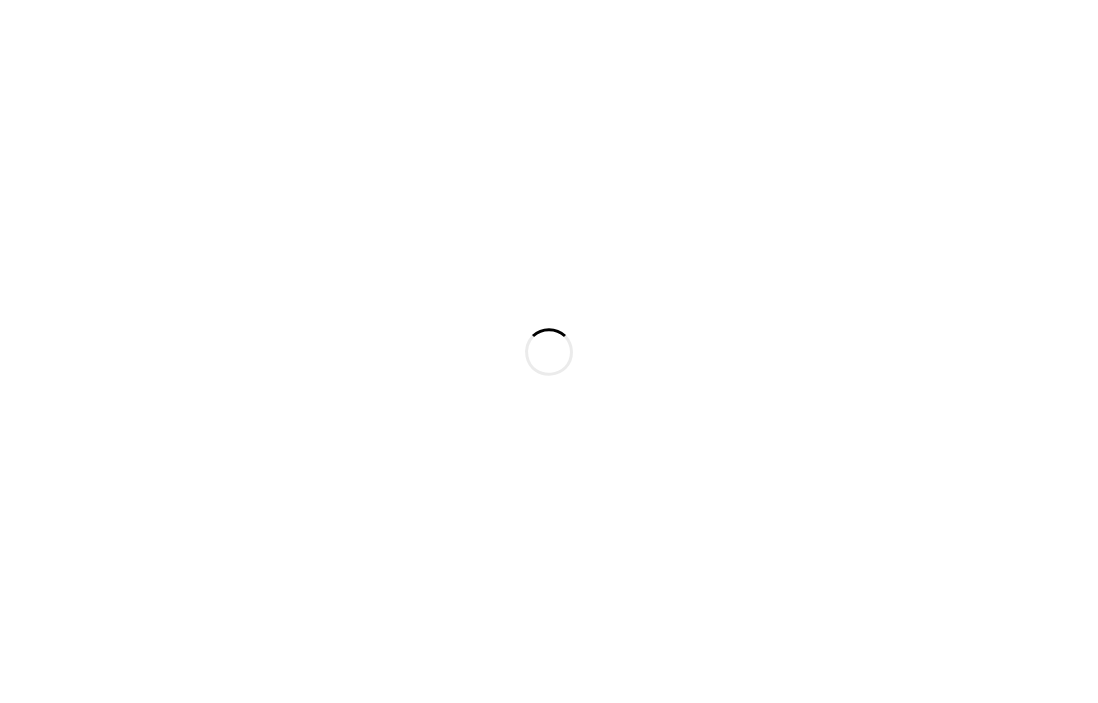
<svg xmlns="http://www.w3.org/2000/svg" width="1098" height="703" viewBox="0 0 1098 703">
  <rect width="100%" height="100%" fill="#fff"/>
  <path d="M533 336C542 327.5 556 327.5 565 336" fill="none" stroke="#010101" stroke-width="3"/>
  <path d="M565 336C569 340.5 571.5 346 571.5 352C571.5 379 532 382.5 527 356.5C525.5 349 528 341.5 533 336" fill="none" stroke="#99999933" stroke-width="3"/>
</svg>
